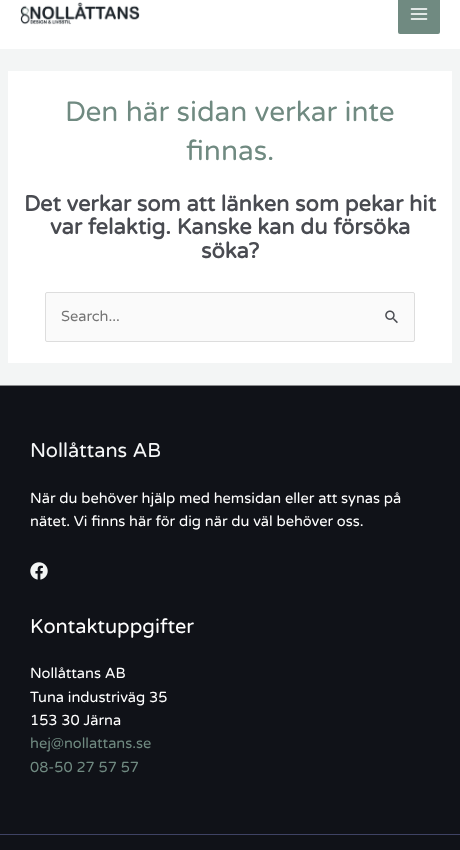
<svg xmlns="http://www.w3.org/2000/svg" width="460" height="850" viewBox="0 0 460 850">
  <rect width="100%" height="100%" fill="#f3f5f5"/>
  <path d="M0 0h460v49H0z" fill="#fff"/>
  <image x="20" y="2" width="120" height="23" href="img/1.png"/>
  <rect x="398" y="-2" width="42" height="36" rx="2" fill="#708a81"/>
  <image x="410" y="8" width="18" height="12" href="img/2.png"/>
  <path d="M8 71h444v292H8z" fill="#fff"/>
  <rect x="45.5" y="292.5" width="369" height="49" rx="1.5" fill="#fafafa" stroke="#ddd"/>
  <image x="385" y="310" width="13" height="14" href="img/3.png"/>
  <path d="M0 386h460v464H0z" fill="#101218"/>
  <path d="M0 385h460v1H0z" fill="#8a8b8d"/>
  <image x="30" y="562" width="18" height="18" href="img/4.png"/>
  <path d="M0 834h460v1H0z" fill="#3f4364"/>
  <g font-family="Varela Round" font-size="28" fill="#708a81">
    <text x="65" y="121">Den här sidan verkar inte</text>
    <text x="186" y="160">finnas.</text>
  </g>
  <g font-family="Varela Round" font-size="21.9" font-weight="bold" fill="#494b51">
    <text x="24" y="211">Det verkar som att länken som pekar hit</text>
    <text x="50" y="234">var felaktig. Kanske kan du försöka</text>
    <text x="201" y="258">söka?</text>
  </g>
  <text x="61" y="321" font-family="Varela Round" font-size="14.6" fill="#757575">Search...</text>
  <text x="30" y="457" font-family="Varela Round" font-size="20" fill="#f6f7f8">Nollåttans AB</text>
  <g font-family="Varela Round" font-size="14.6" fill="#fff">
    <text x="30" y="503">När du behöver hjälp med hemsidan eller att synas på</text>
    <text x="30" y="526">nätet. Vi finns här för dig när du väl behöver oss.</text>
  </g>
  <text x="30" y="633" font-family="Varela Round" font-size="20" fill="#fff">Kontaktuppgifter</text>
  <g font-family="Varela Round" font-size="14.6" fill="#fff">
    <text x="30" y="678">Nollåttans AB</text>
    <text x="30" y="702">Tuna industriväg 35</text>
    <text x="30" y="725">153 30 Järna</text>
  </g>
  <g font-family="Varela Round" font-size="14.6" fill="#708a81">
    <text x="30" y="748">hej@nollattans.se</text>
    <text x="30" y="772">08-50 27 57 57</text>
  </g>
</svg>
